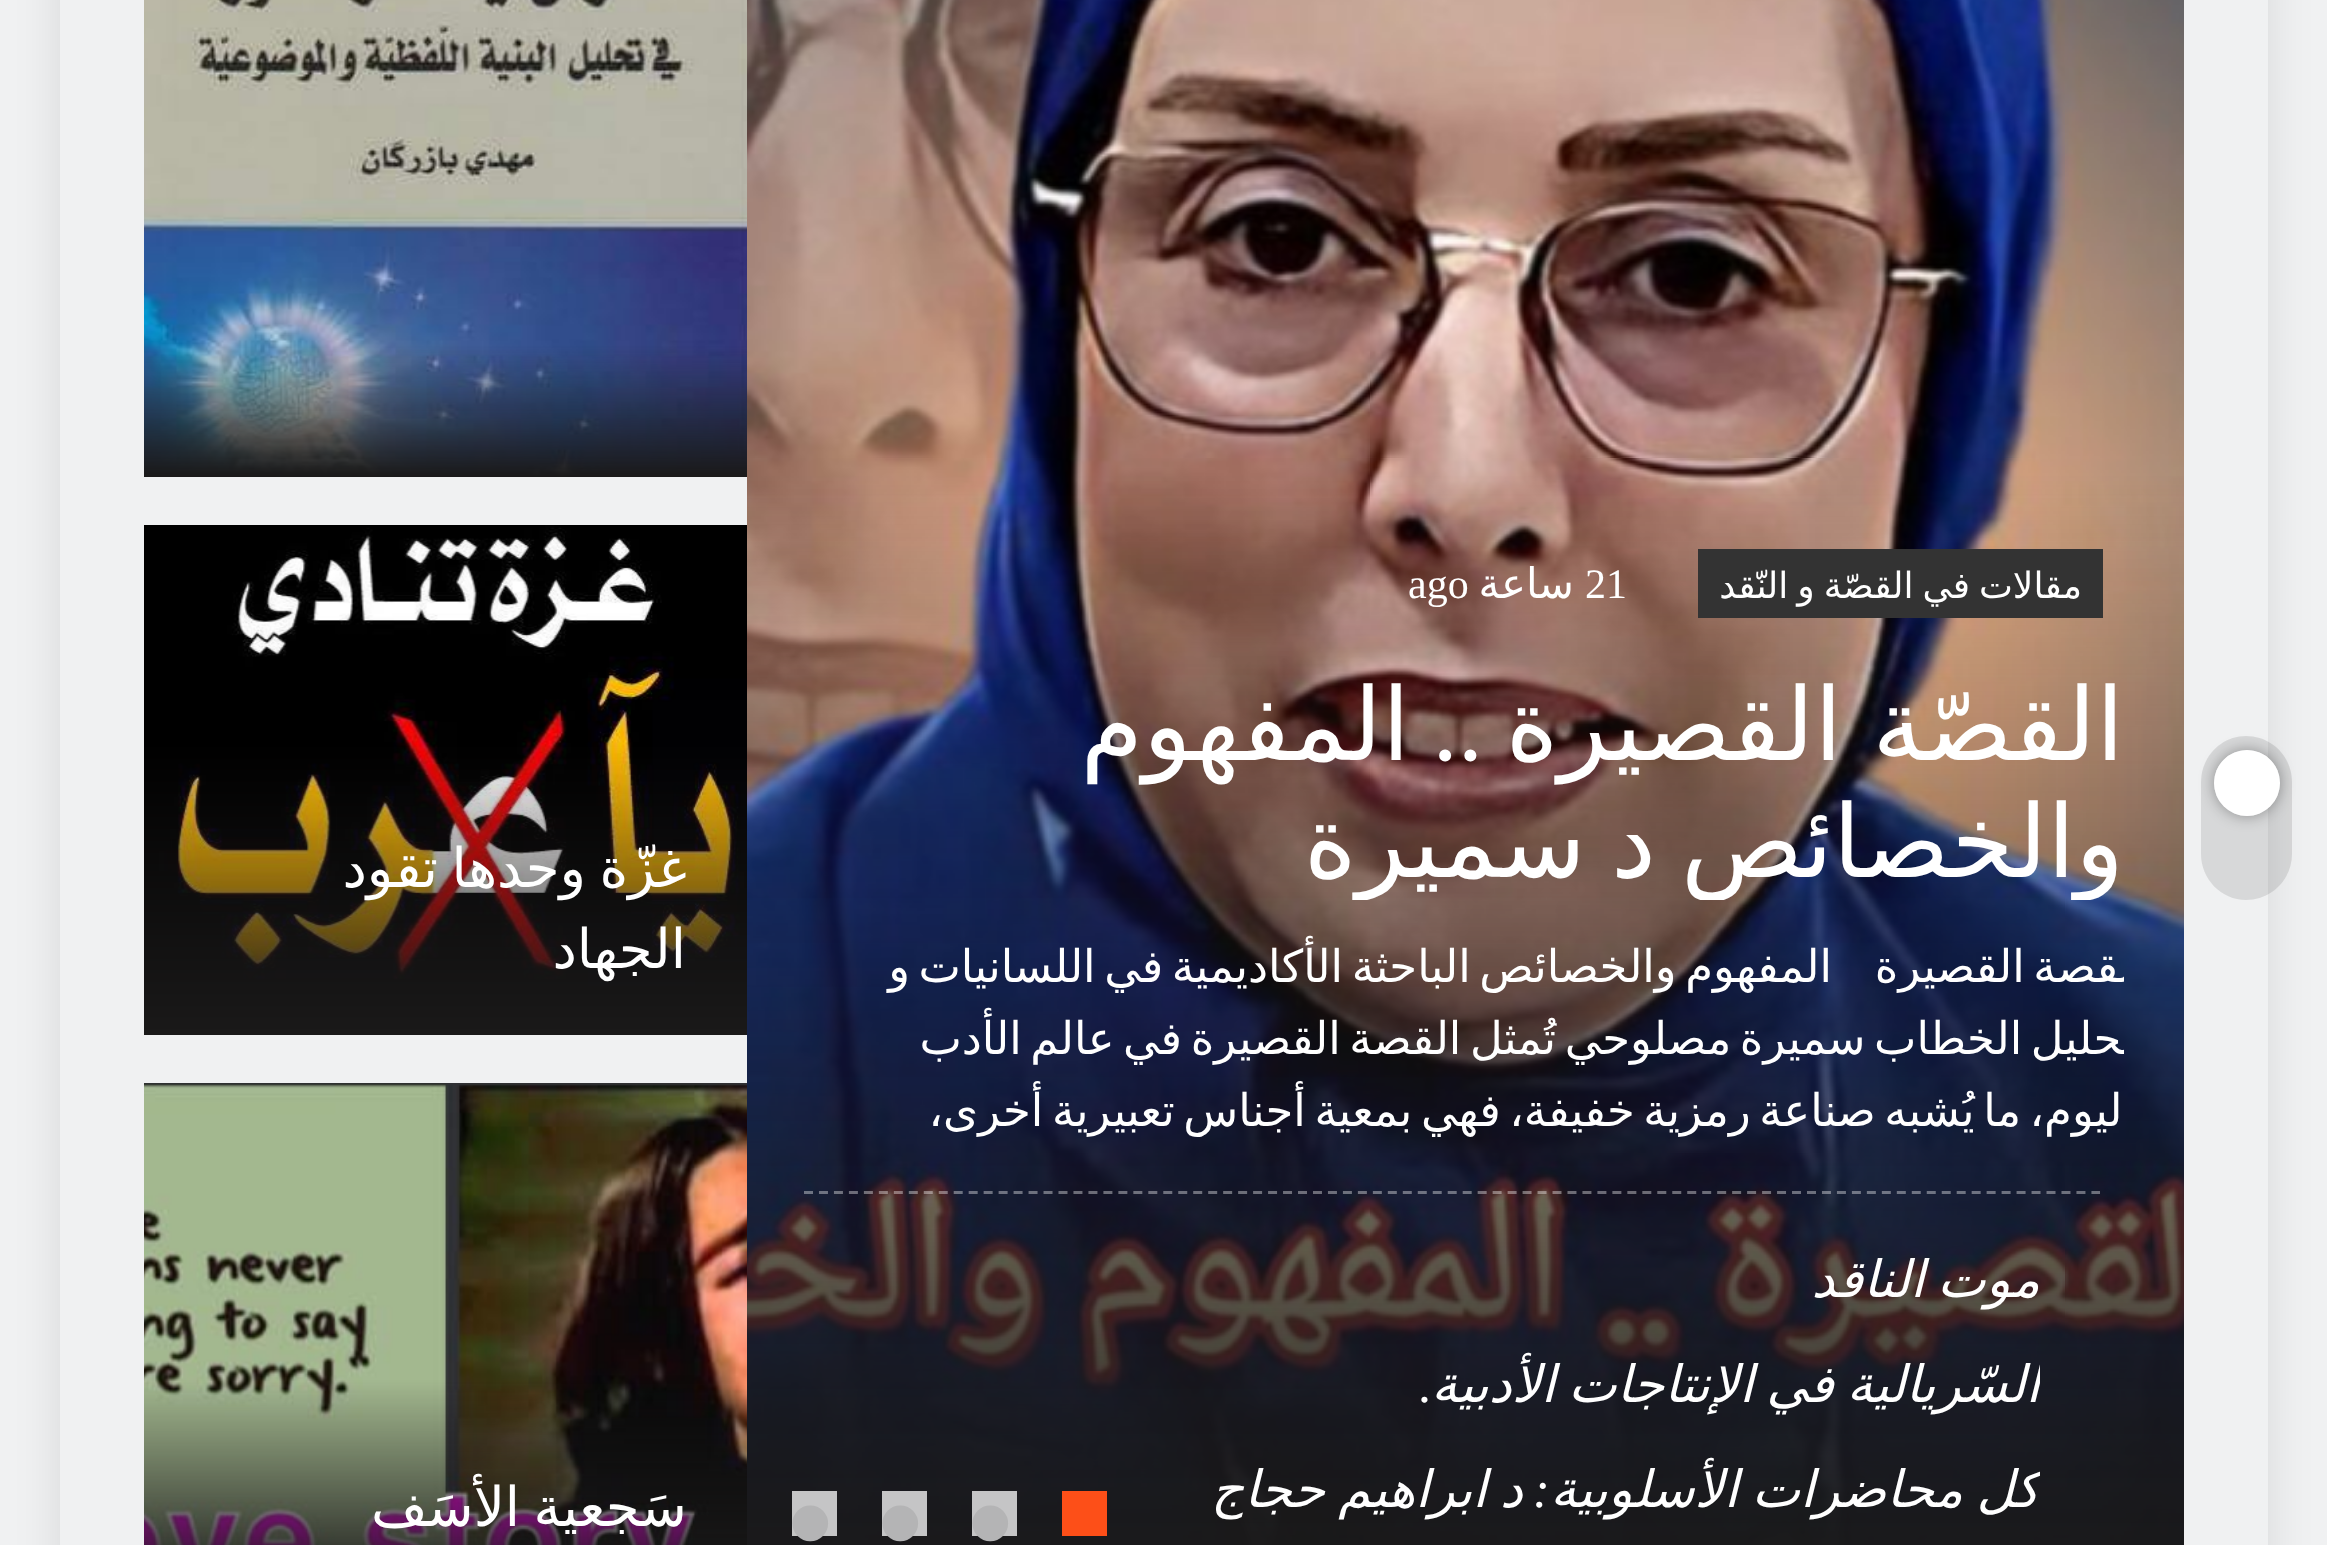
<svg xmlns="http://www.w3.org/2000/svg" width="2327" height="1545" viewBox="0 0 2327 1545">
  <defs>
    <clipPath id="clip1"><path d="M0 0H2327V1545H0ZM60-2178H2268V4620H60Z" clip-rule="evenodd"/></clipPath>
    <clipPath id="clip2"><path d="M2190 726H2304V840H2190ZM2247 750C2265 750 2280 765 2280 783C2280 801 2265 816 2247 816C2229 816 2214 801 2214 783C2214 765 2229 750 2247 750Z" clip-rule="evenodd"/></clipPath>
    <clipPath id="clip3"><path d="M936 666h1188v234H936z"/></clipPath>
    <clipPath id="clip4"><path d="M804 930h1320v216H804z"/></clipPath>
    <clipPath id="clip5"><path d="M804 1239h1236v81H804z"/></clipPath>
    <clipPath id="clip6"><path d="M804 1344h1236v81H804z"/></clipPath>
    <clipPath id="clip7"><path d="M804 1449h1236v81H804z"/></clipPath>
    <clipPath id="clip8"><path d="M204 831h483v162H204z"/></clipPath>
  </defs>
  <rect width="100%" height="100%" fill="#f0f1f2"/>
  <g clip-path="url(#clip1)">
    <path d="M60 -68h2208v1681H60z" fill="#0000001a" filter="blur(22.5px)"/>
  </g>
  <path d="M2292 782V854C2292 879 2272 900 2246 900C2221 900 2201 879 2201 854V782C2201 757 2221 736 2246 736C2272 736 2292 757 2292 782Z" fill="#0000001a"/>
  <g clip-path="url(#clip2)">
    <rect x="2214" y="750" width="66" height="66" rx="33" fill="#00000059" filter="blur(7.5px)"/>
  </g>
  <circle cx="2247" cy="783" r="33" fill="#fff"/>
  <image x="747" y="0" width="1437" height="1545" href="img/1.png"/>
  <path d="M1698 549h405v69H1698z" fill="#333"/>
  <path d="M804 1192.5H2100" fill="none" stroke="#ffffff61" stroke-width="3" stroke-dasharray="9 5.97"/>
  <path d="M1062 1491h45v45H1062z" fill="#fd4f18"/>
  <path d="M972 1491h45v45H972z" fill="#ffffffbf"/>
  <path d="M882 1491h45v45H882z" fill="#ffffffbf"/>
  <path d="M792 1491h45v45H792z" fill="#ffffffbf"/>
  <image x="144" y="0" width="603" height="477" href="img/2.png"/>
  <image x="144" y="525" width="603" height="510" href="img/3.png"/>
  <image x="144" y="1083" width="603" height="462" href="img/4.png"/>
  <text x="2082" y="598" word-spacing="-2.5" font-family="DejaVu Sans" font-size="36.1" direction="rtl" fill="#fff">مقالات في القصّة و النّقد</text>
  <text x="1585" y="598" font-family="Liberation Serif" font-size="42" fill="#fff">21</text>
  <text x="1574" y="598" font-family="DejaVu Sans" font-size="42" direction="rtl" fill="#fff">ساعة</text>
  <text x="1408" y="598" font-family="Liberation Serif" font-size="42" fill="#fff">ago</text>
  <text x="2124" y="760" word-spacing="-2" font-family="DejaVu Sans" font-size="101" direction="rtl" fill="#fff">القصّة القصيرة</text>
  <text x="1483" y="760" font-family="Liberation Serif" font-size="101" direction="rtl" fill="#fff">..</text>
  <text x="1410" y="760" font-family="DejaVu Sans" font-size="101" direction="rtl" fill="#fff">المفهوم</text>
  <g clip-path="url(#clip3)">
    <text x="2124" y="877" word-spacing="-7" font-family="DejaVu Sans" font-size="101" direction="rtl" fill="#fff">والخصائص د سميرة</text>
  </g>
  <g clip-path="url(#clip4)">
    <text x="2133" y="982" word-spacing="-5.75" font-family="DejaVu Sans" font-size="45" letter-spacing="0.6" direction="rtl" fill="#fff">لقصة القصيرة</text>
  </g>
  <text x="1832" y="982" word-spacing="-5.75" font-family="DejaVu Sans" font-size="45" letter-spacing="0.6" direction="rtl" fill="#fff">المفهوم والخصائص الباحثة الأكاديمية في اللسانيات و</text>
  <g clip-path="url(#clip4)">
    <g font-family="DejaVu Sans" font-size="45" letter-spacing="0.6" direction="rtl" fill="#fff">
      <text x="2135" y="1054" word-spacing="-5.75">تحليل الخطاب سميرة مصلوحي تُمثل القصة القصيرة في عالم الأدب</text>
      <text x="2135" y="1126" word-spacing="-5.75">اليوم، ما يُشبه صناعة رمزية خفيفة، فهي بمعية أجناس تعبيرية أخرى،</text>
    </g>
  </g>
  <g clip-path="url(#clip5)">
    <text x="2040" y="1297" word-spacing="-3.5" font-family="DejaVu Sans" font-size="51.5" font-style="italic" direction="rtl" fill="#fff">موت الناقد</text>
  </g>
  <g clip-path="url(#clip6)">
    <text x="2040" y="1402" word-spacing="-3.5" font-family="DejaVu Sans" font-size="51.5" font-style="italic" direction="rtl" fill="#fff">السّريالية في الإنتاجات الأدبية</text>
  </g>
  <text x="1432" y="1402" font-family="Liberation Serif" font-size="51.5" font-style="italic" direction="rtl" fill="#fff">.</text>
  <g clip-path="url(#clip7)">
    <text x="2040" y="1507" word-spacing="-3" font-family="DejaVu Sans" font-size="51.5" font-style="italic" direction="rtl" fill="#fff">كل محاضرات الأسلوبية</text>
  </g>
  <text x="1550" y="1507" font-family="Liberation Serif" font-size="51.5" font-style="italic" direction="rtl" fill="#fff">:</text>
  <text x="1523" y="1507" word-spacing="-3" font-family="DejaVu Sans" font-size="51.5" font-style="italic" direction="rtl" fill="#fff">د ابراهيم حجاج</text>
  <g font-family="Liberation Serif" font-size="150" fill="#b4b4b5">
    <text x="964" y="1573">•</text>
    <text x="874" y="1573">•</text>
    <text x="784" y="1573">•</text>
  </g>
  <g clip-path="url(#clip8)">
    <text x="687" y="887" word-spacing="-4" font-family="DejaVu Sans" font-size="54.75" direction="rtl" fill="#fff">غزّة وحدها تقود</text>
  </g>
  <g font-family="DejaVu Sans" font-size="54.75" direction="rtl" fill="#fff">
    <text x="686" y="968">الجهاد</text>
    <text x="687" y="1526" word-spacing="-4">سَجعية الأسَف</text>
  </g>
</svg>
